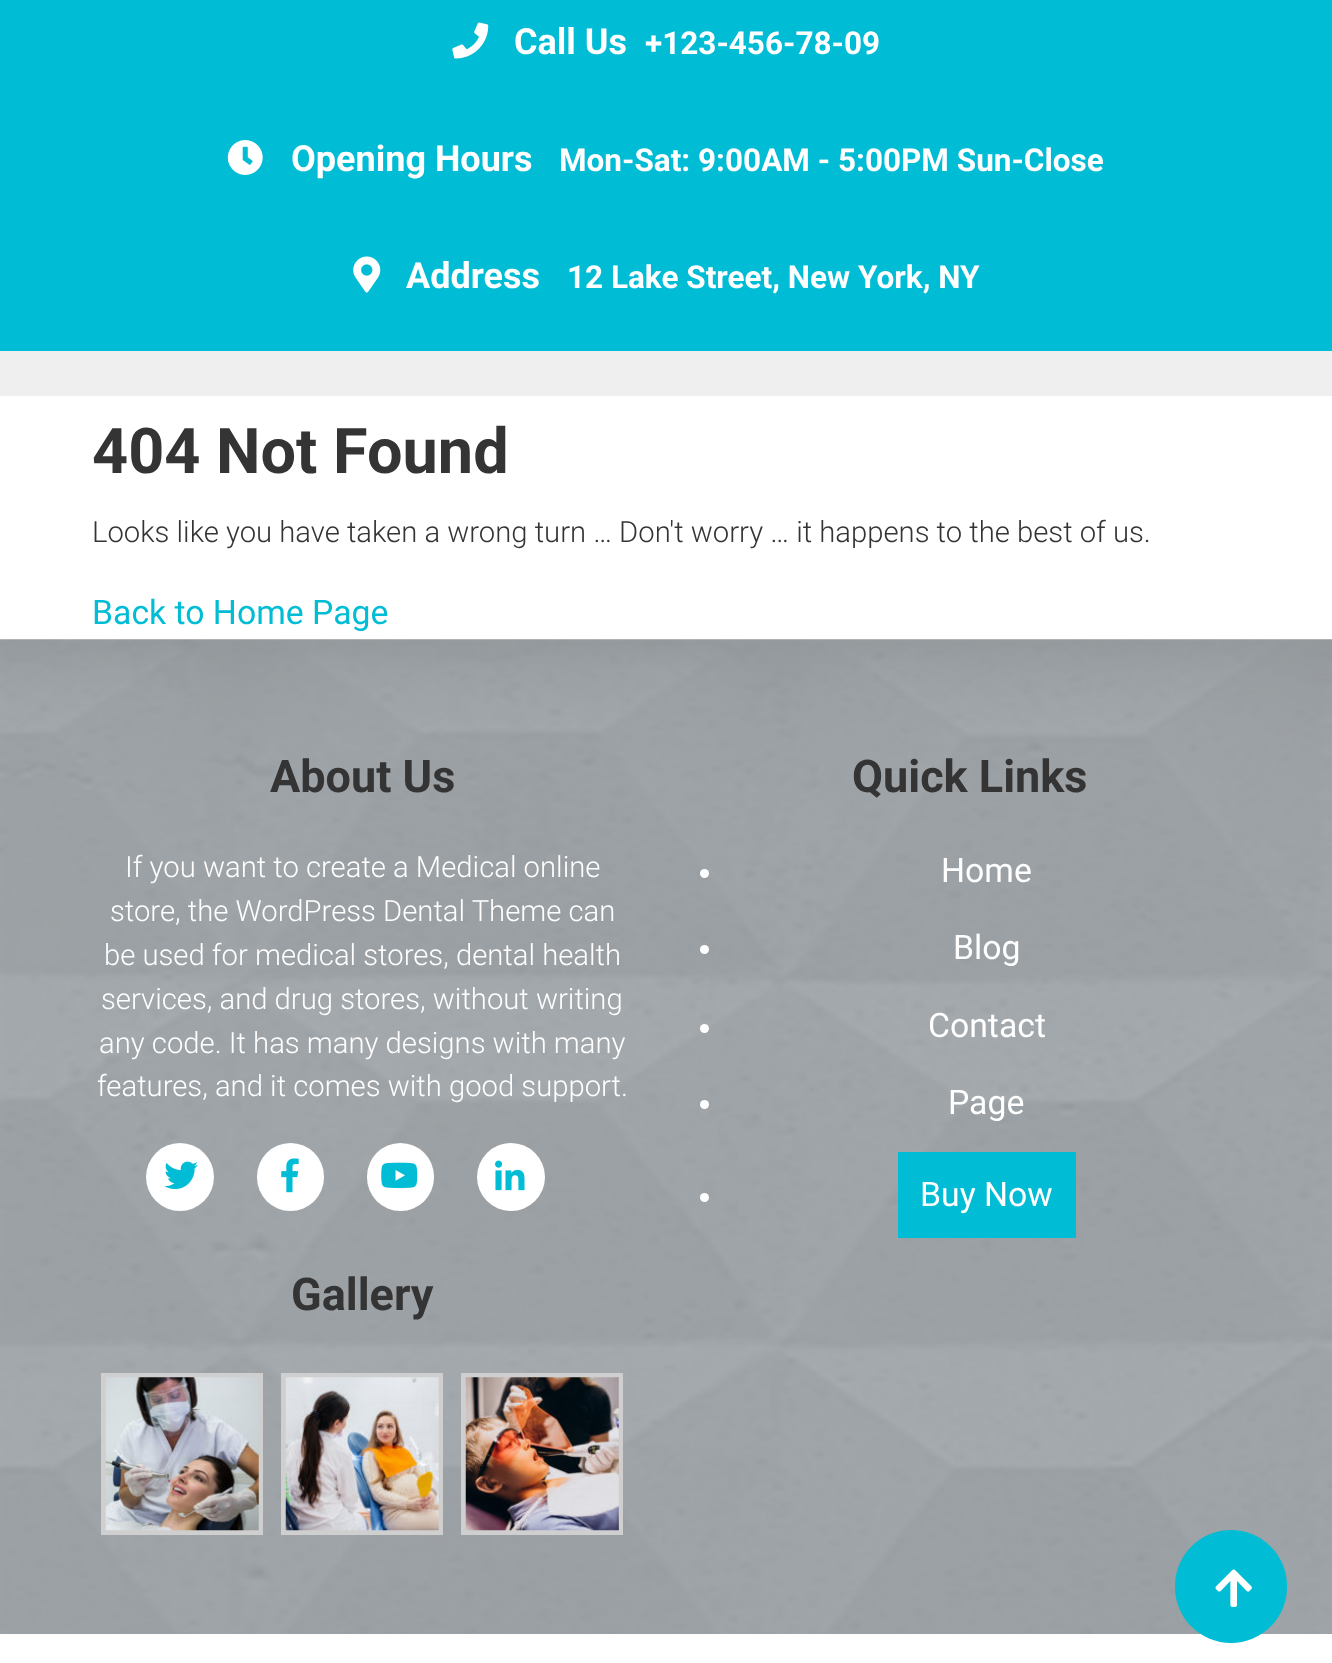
<svg xmlns="http://www.w3.org/2000/svg" width="1332" height="1663" viewBox="0 0 1332 1663">
  <rect width="100%" height="100%" fill="#fff"/>
  <path d="M0 0h1332v351H0z" fill="#00bcd5"/>
  <image x="452" y="22" width="37" height="37" href="img/1.png"/>
  <image x="227" y="140" width="36" height="35" href="img/2.png"/>
  <image x="353" y="256" width="28" height="37" href="img/3.png"/>
  <path d="M0 351h1332v45H0z" fill="#efefef"/>
  <image x="0" y="639" width="1332" height="995" href="img/4.png"/>
  <circle cx="180" cy="1177" r="34" fill="#fff"/>
  <image x="164" y="1161" width="34" height="29" href="img/5.png"/>
  <rect x="257" y="1143" width="67" height="68" rx="33.5" fill="#fff"/>
  <image x="281" y="1158" width="18" height="35" href="img/6.png"/>
  <rect x="367" y="1143" width="67" height="68" rx="33.5" fill="#fff"/>
  <image x="381" y="1162" width="37" height="26" href="img/7.png"/>
  <circle cx="511" cy="1177" r="34" fill="#fff"/>
  <image x="495" y="1160" width="30" height="31" href="img/8.png"/>
  <circle cx="704.5" cy="873.5" r="4.5" fill="#fff"/>
  <circle cx="704.5" cy="949.5" r="4.5" fill="#fff"/>
  <circle cx="704.5" cy="1028.5" r="4.5" fill="#fff"/>
  <circle cx="704.5" cy="1104.5" r="4.5" fill="#fff"/>
  <circle cx="704.5" cy="1197.5" r="4.5" fill="#fff"/>
  <path d="M898 1152h178v86H898z" fill="#00bcd5"/>
  <path d="M103.5 1375.5h157v157H103.5z" fill="none" stroke="#cfcfcf" stroke-width="5"/>
  <image x="105" y="1377" width="154" height="154" href="img/9.png"/>
  <path d="M283.5 1375.5h157v157H283.5z" fill="none" stroke="#cfcfcf" stroke-width="5"/>
  <image x="285" y="1377" width="154" height="154" href="img/10.png"/>
  <path d="M463.5 1375.5h157v157H463.5z" fill="none" stroke="#cfcfcf" stroke-width="5"/>
  <image x="465" y="1377" width="154" height="154" href="img/11.png"/>
  <rect x="1175" y="1530" width="112" height="113" rx="56" fill="#00bcd5"/>
  <image x="1215" y="1569" width="37" height="38" href="img/12.png"/>
  <text x="514" y="54" font-family="Roboto" font-size="36" font-weight="bold" fill="#fff">Call Us</text>
  <text x="645" y="54" font-family="Roboto" font-size="31.5" font-weight="bold" fill="#fff">+123-456-78-09</text>
  <text x="291" y="171" font-family="Roboto" font-size="36" font-weight="bold" fill="#fff">Opening Hours</text>
  <text x="559" y="171" font-family="Roboto" font-size="31.5" font-weight="bold" fill="#fff">Mon-Sat: 9:00AM - 5:00PM Sun-Close</text>
  <text x="406" y="288" font-family="Roboto" font-size="36" font-weight="bold" fill="#fff">Address</text>
  <text x="567" y="288" font-family="Roboto" font-size="31.5" font-weight="bold" fill="#fff">12 Lake Street, New York, NY</text>
  <text x="92" y="473" font-family="Roboto" font-size="63" font-weight="bold" fill="#343434">404 Not Found</text>
  <text x="92" y="542" font-family="Roboto" font-size="29.25" font-weight="300" fill="#343434">Looks like you have taken a wrong turn … Don't worry … it happens to the best of us.</text>
  <text x="92" y="624" font-family="Roboto" font-size="33.75" fill="#00bcd5">Back to Home Page</text>
  <text x="270" y="792" font-family="Roboto" font-size="45" font-weight="bold" fill="#343434">About Us</text>
  <g font-family="Roboto" font-size="29.25" font-weight="300" fill="#fff">
    <text x="125" y="877">If you want to create a Medical online</text>
    <text x="110" y="921">store, the WordPress Dental Theme can</text>
    <text x="104" y="965">be used for medical stores, dental health</text>
    <text x="101" y="1009">services, and drug stores, without writing</text>
    <text x="99" y="1053">any code. It has many designs with many</text>
    <text x="97" y="1096">features, and it comes with good support.</text>
  </g>
  <text x="852" y="792" font-family="Roboto" font-size="45" font-weight="bold" fill="#343434">Quick Links</text>
  <g font-family="Roboto" font-size="33.75" fill="#fff">
    <text x="941" y="882">Home</text>
    <text x="953" y="959">Blog</text>
    <text x="928" y="1037">Contact</text>
    <text x="948" y="1114">Page</text>
    <text x="920" y="1206">Buy Now</text>
  </g>
  <text x="291" y="1310" font-family="Roboto" font-size="45" font-weight="bold" fill="#343434">Gallery</text>
</svg>
